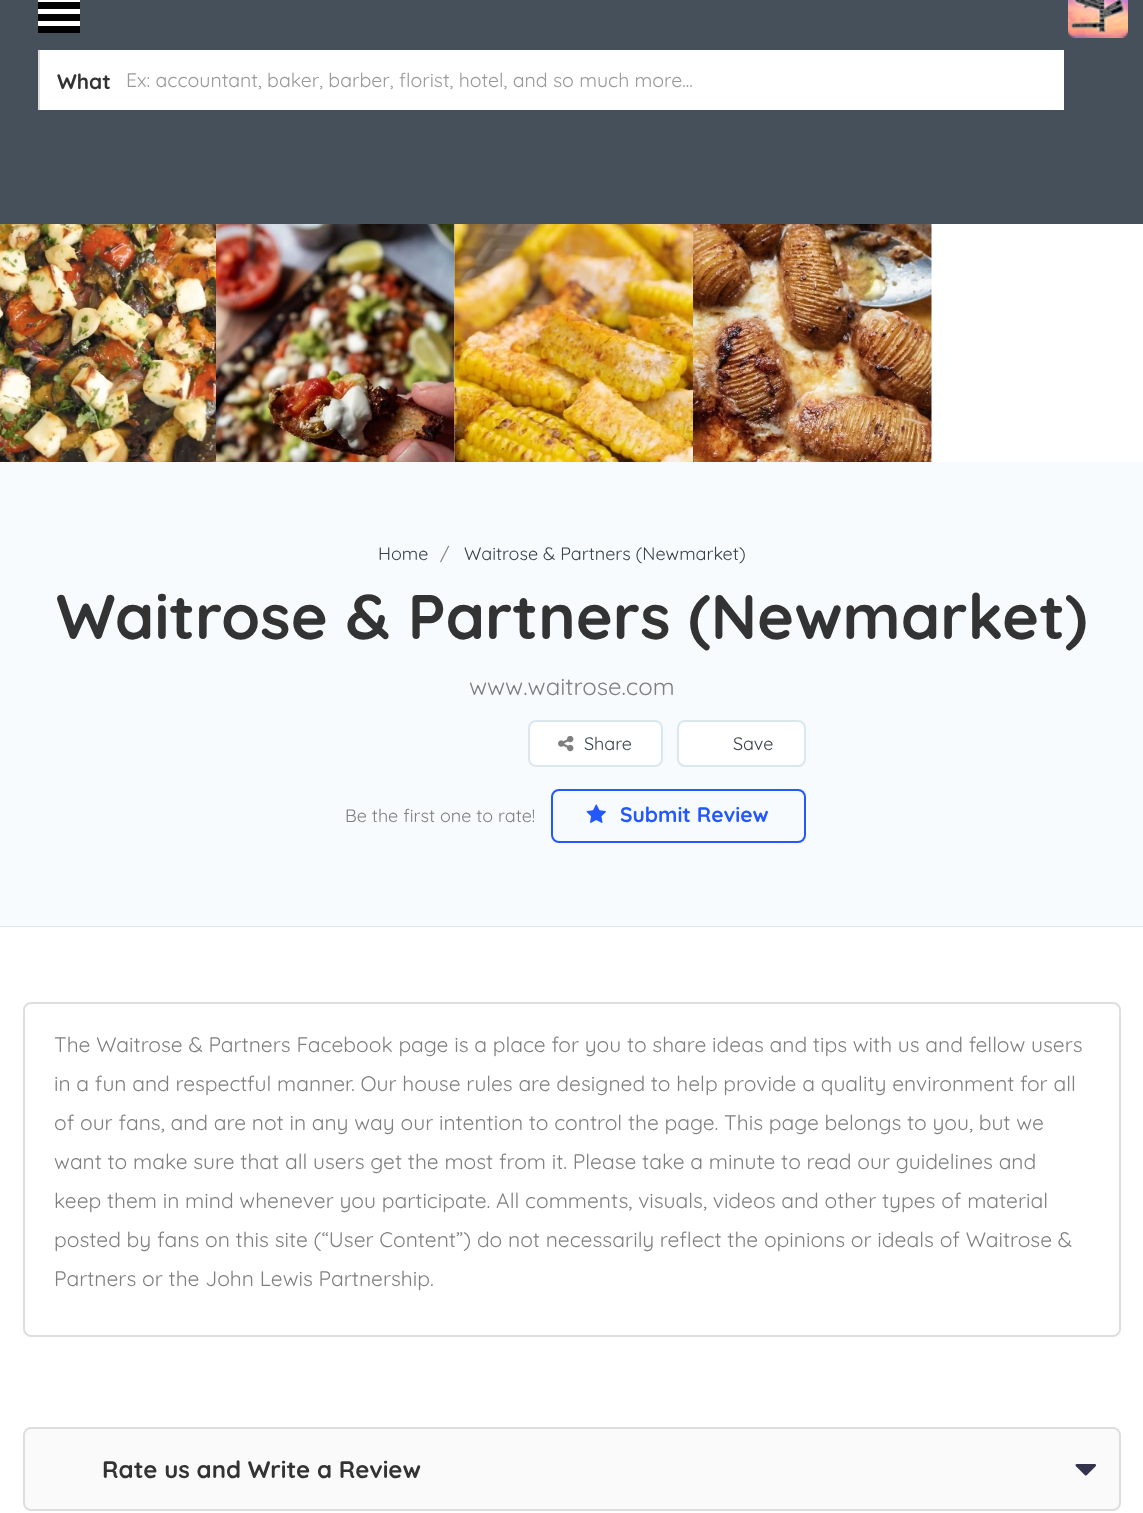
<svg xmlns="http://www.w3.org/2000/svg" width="1143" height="1513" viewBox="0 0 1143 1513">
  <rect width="100%" height="100%" fill="#f7fbfe"/>
  <path d="M0 0h1143v224H0z" fill="#45505b"/>
  <image x="1068" y="0" width="60" height="38" href="img/1.png"/>
  <path d="M38 2h42v31H38z" fill="#000"/>
  <path d="M38 0h42v2H38z" fill="#fff"/>
  <path d="M38 9h42v5H38z" fill="#fff"/>
  <path d="M38 21h42v5H38z" fill="#fff"/>
  <path d="M40 50h1024v60H40z" fill="#fff"/>
  <path d="M38 50h2v60H38z" fill="#dedede"/>
  <path d="M454 224h689v238H454z" fill="#fff"/>
  <image x="0" y="224" width="216" height="238" href="img/2.png"/>
  <image x="216" y="224" width="239" height="238" href="img/3.png"/>
  <image x="454" y="224" width="239" height="238" href="img/4.png"/>
  <image x="693" y="224" width="239" height="238" href="img/5.png"/>
  <path d="M0 926h1143v1H0z" fill="#dbe7ef"/>
  <rect x="529" y="721" width="133" height="45" rx="7" fill="#fff" stroke="#dbe7ef" stroke-width="2"/>
  <image x="558" y="735" width="16" height="17" href="img/6.png"/>
  <rect x="678" y="721" width="127" height="45" rx="7" fill="#fff" stroke="#dbe7ef" stroke-width="2"/>
  <rect x="552" y="790" width="253" height="52" rx="7" fill="none" stroke="#2458ff" stroke-width="2"/>
  <image x="586" y="804" width="20" height="19" href="img/7.png"/>
  <path d="M0 927h1143v586H0z" fill="#fff"/>
  <rect x="24" y="1003" width="1096" height="333" rx="7" fill="none" stroke="#dedede" stroke-width="2"/>
  <rect x="24" y="1428" width="1096" height="82" rx="7" fill="#fafafa" stroke="#dedede" stroke-width="2"/>
  <image x="1075" y="1464" width="22" height="12" href="img/8.png"/>
  <text x="57" y="89" font-family="Quicksand" font-size="21" font-weight="bold" fill="#333">What</text>
  <text x="126" y="87" font-family="Quicksand" font-size="19.5" fill="#999">Ex: accountant, baker, barber, florist, hotel, and so much more...</text>
  <text x="378" y="560" font-family="Quicksand" font-size="18" fill="#363f48">Home</text>
  <text x="440" y="560" font-family="Quicksand" font-size="18" fill="#7f7f7f">/</text>
  <text x="464" y="560" font-family="Quicksand" font-size="18" fill="#363f48">Waitrose &amp; Partners (Newmarket)</text>
  <text x="56" y="639" font-family="Quicksand" font-size="63" font-weight="bold" fill="#333">Waitrose &amp; Partners (Newmarket)</text>
  <text x="469" y="695" font-family="Quicksand" font-size="24" fill="#7f7f7f">www.waitrose.com</text>
  <g font-family="Quicksand" font-size="18" fill="#363f48">
    <text x="584" y="750">Share</text>
    <text x="733" y="750">Save</text>
  </g>
  <text x="345" y="822" font-family="Quicksand" font-size="18" fill="#7f7f7f">Be the first one to rate!</text>
  <text x="620" y="822" font-family="Quicksand" font-size="21" font-weight="bold" fill="#2458ff">Submit Review</text>
  <g font-family="Quicksand" font-size="21" fill="#7f7f7f">
    <text x="54" y="1052">The Waitrose &amp; Partners Facebook page is a place for you to share ideas and tips with us and fellow users</text>
    <text x="54" y="1091">in a fun and respectful manner. Our house rules are designed to help provide a quality environment for all</text>
    <text x="54" y="1130">of our fans, and are not in any way our intention to control the page. This page belongs to you, but we</text>
    <text x="54" y="1169">want to make sure that all users get the most from it. Please take a minute to read our guidelines and</text>
    <text x="54" y="1208">keep them in mind whenever you participate. All comments, visuals, videos and other types of material</text>
    <text x="54" y="1247">posted by fans on this site (“User Content”) do not necessarily reflect the opinions or ideals of Waitrose &amp;</text>
    <text x="54" y="1286">Partners or the John Lewis Partnership.</text>
  </g>
  <text x="102" y="1478" font-family="Quicksand" font-size="24" font-weight="bold" fill="#333">Rate us and Write a Review</text>
</svg>
